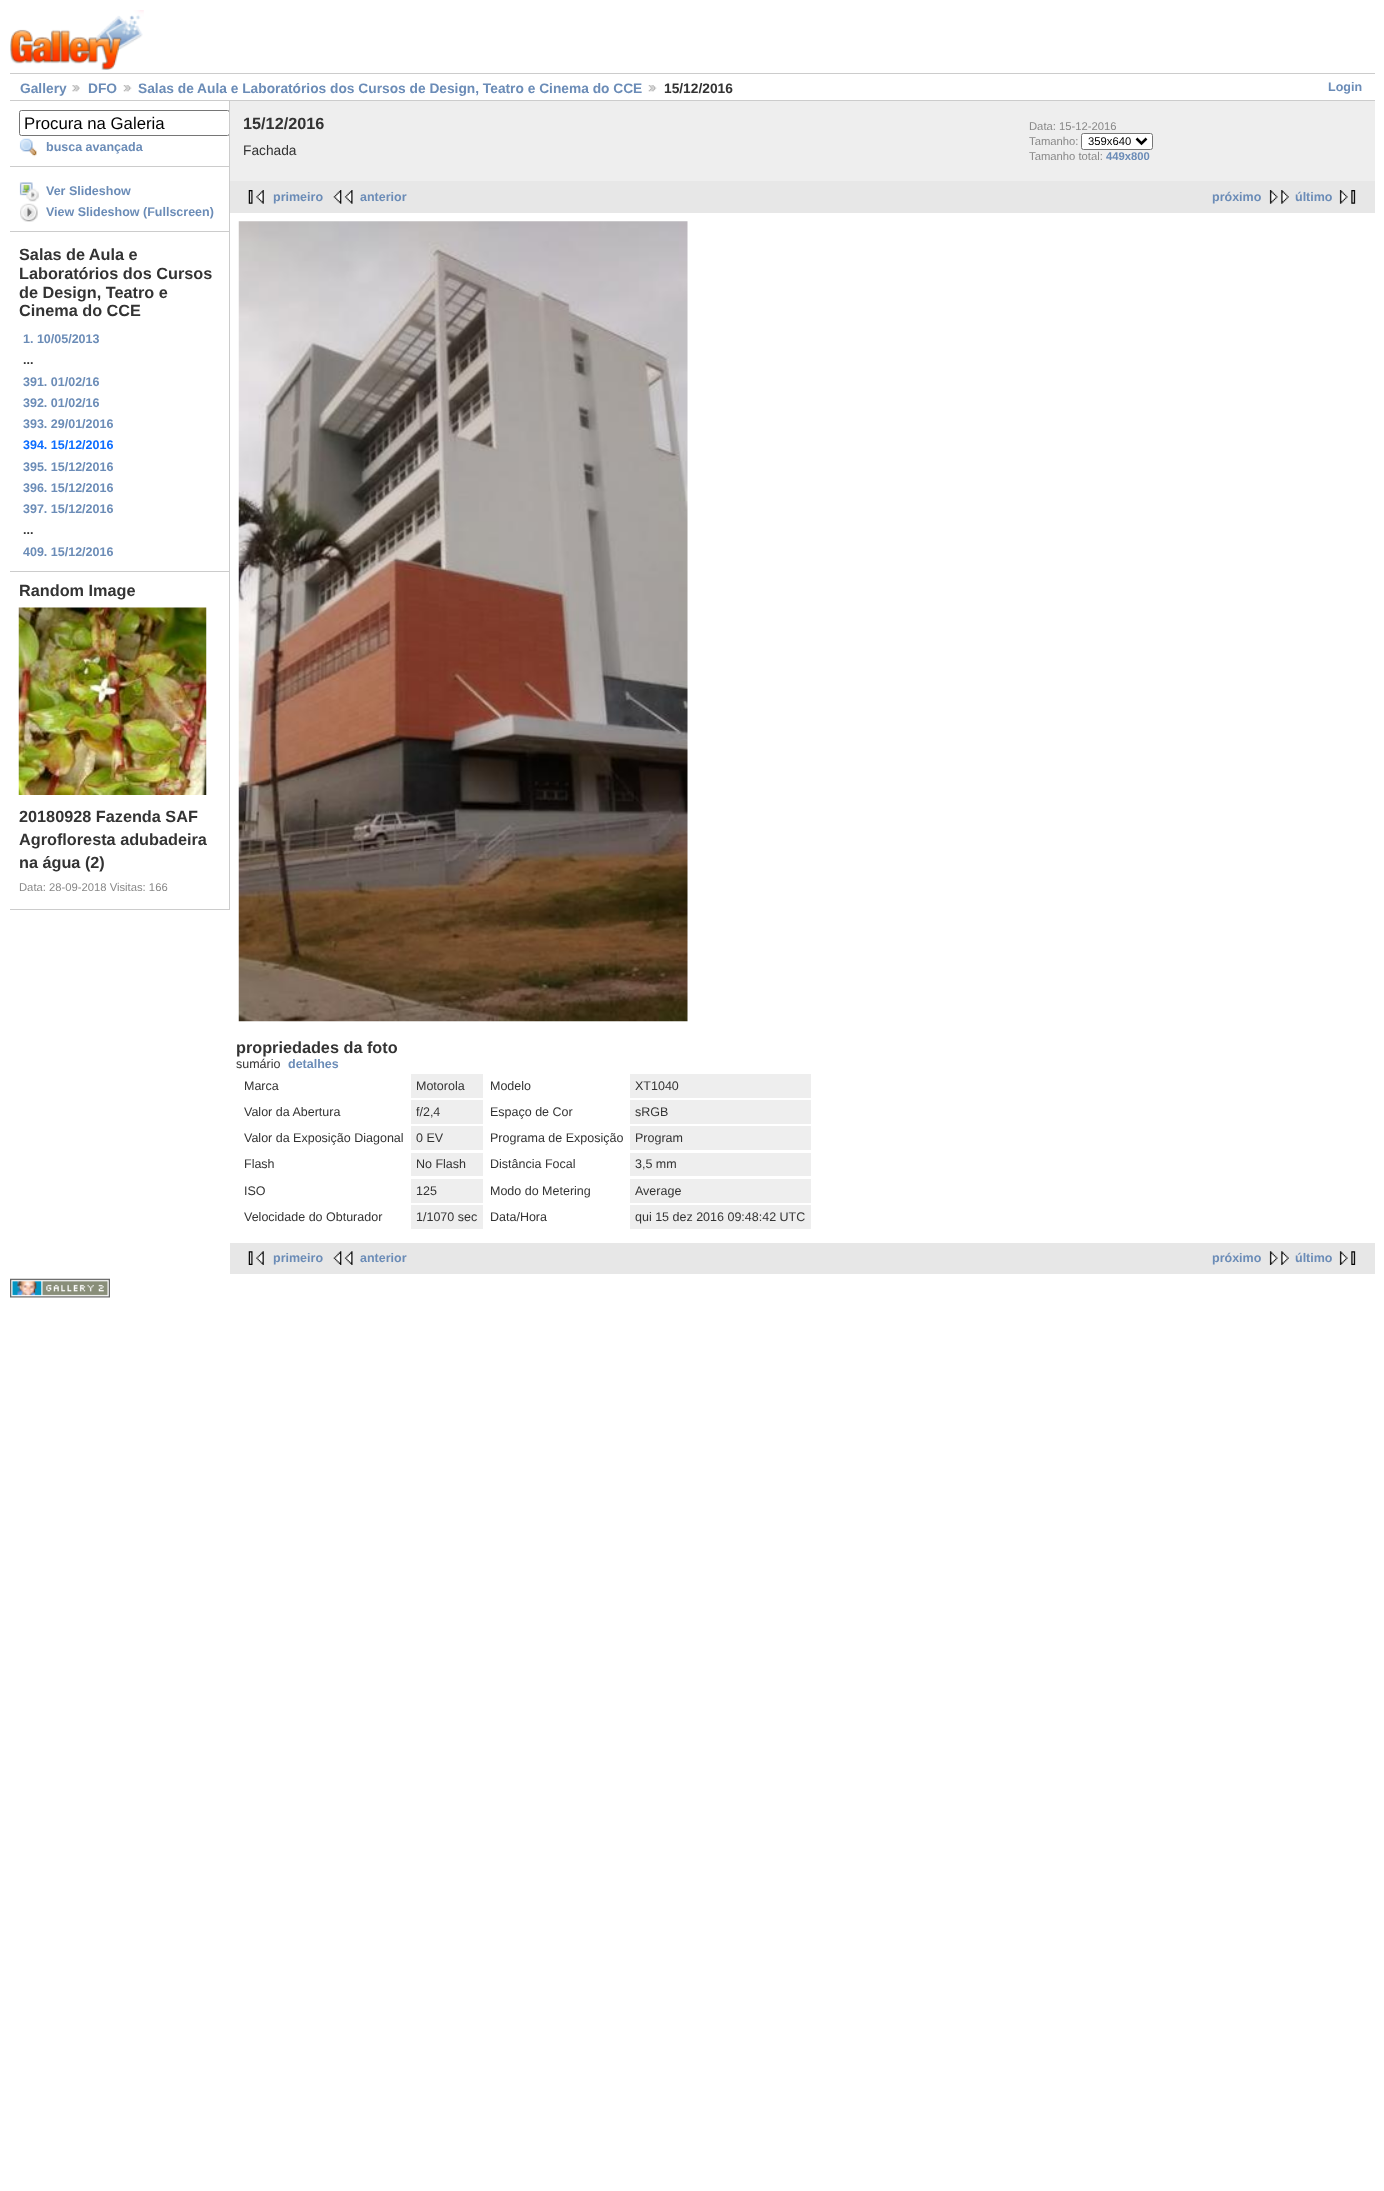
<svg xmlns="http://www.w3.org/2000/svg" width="1384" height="2191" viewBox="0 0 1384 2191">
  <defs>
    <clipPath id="clip1"><path d="M10 101h219v809H10z"/></clipPath>
  </defs>
  <rect width="100%" height="100%" fill="#fff"/>
  <image x="10" y="10" width="134" height="60" href="img/1.png"/>
  <path d="M10 73h1365v1H10z" fill="#ccc"/>
  <path d="M10 100h1365v1H10z" fill="#ccc"/>
  <image x="72" y="85" width="8" height="7" href="img/2.png"/>
  <image x="123" y="85" width="9" height="7" href="img/3.png"/>
  <image x="648" y="85" width="9" height="7" href="img/3.png"/>
  <path d="M229 101h1v809H229z" fill="#ccc"/>
  <path d="M10 166h219v1H10z" fill="#ccc"/>
  <g clip-path="url(#clip1)">
    <rect x="19.5" y="110.5" width="210" height="25" rx="2" fill="none" stroke="#767676"/>
  </g>
  <image x="19" y="138" width="18" height="19" href="img/4.png"/>
  <path d="M10 231h219v1H10z" fill="#ccc"/>
  <image x="19" y="182" width="20" height="20" href="img/5.png"/>
  <image x="20" y="203" width="18" height="19" href="img/6.png"/>
  <path d="M10 571h219v1H10z" fill="#ccc"/>
  <path d="M10 909h219v1H10z" fill="#ccc"/>
  <image x="18" y="607" width="189" height="188" href="img/7.png"/>
  <path d="M230 101h1145v80H230z" fill="#eee"/>
  <rect x="1081.5" y="133.5" width="71" height="16" rx="2" fill="#fff" stroke="#767676"/>
  <path d="M1136.5 138.5L1141.5 143.5L1146.5 138.5" fill="none" stroke="#000" stroke-width="2.5"/>
  <path d="M230 181h1145v32H230z" fill="#e7e7e7"/>
  <image x="248" y="190" width="16" height="14" href="img/8.png"/>
  <image x="333" y="190" width="20" height="14" href="img/9.png"/>
  <image x="1269" y="190" width="20" height="14" href="img/10.png"/>
  <image x="1339" y="190" width="17" height="14" href="img/11.png"/>
  <image x="238" y="221" width="450" height="801" href="img/12.png"/>
  <path d="M411 1074h72v24H411z" fill="#eee"/>
  <path d="M630 1074h181v24H630z" fill="#eee"/>
  <path d="M411 1100h72v24H411z" fill="#eee"/>
  <path d="M630 1100h181v24H630z" fill="#eee"/>
  <path d="M411 1126h72v24H411z" fill="#eee"/>
  <path d="M630 1126h181v24H630z" fill="#eee"/>
  <path d="M411 1153h72v23H411z" fill="#eee"/>
  <path d="M630 1153h181v23H630z" fill="#eee"/>
  <path d="M411 1179h72v24H411z" fill="#eee"/>
  <path d="M630 1179h181v24H630z" fill="#eee"/>
  <path d="M411 1205h72v24H411z" fill="#eee"/>
  <path d="M630 1205h181v24H630z" fill="#eee"/>
  <path d="M230 1243h1145v31H230z" fill="#e7e7e7"/>
  <image x="248" y="1251" width="16" height="14" href="img/13.png"/>
  <image x="333" y="1251" width="20" height="14" href="img/14.png"/>
  <image x="1269" y="1251" width="20" height="14" href="img/15.png"/>
  <image x="1339" y="1251" width="17" height="14" href="img/16.png"/>
  <image x="10" y="1278" width="100" height="20" href="img/17.png"/>
  <g font-family="Liberation Sans" font-size="13.75" font-weight="bold" fill="#6b8cb7">
    <text x="20" y="93">Gallery</text>
    <text x="88" y="93">DFO</text>
    <text x="138" y="93">Salas de Aula e Laboratórios dos Cursos de Design, Teatro e Cinema do CCE</text>
  </g>
  <text x="664" y="93" font-family="Liberation Sans" font-size="13.75" font-weight="bold" fill="#333">15/12/2016</text>
  <text x="1328" y="91" font-family="Liberation Sans" font-size="12.5" font-weight="bold" fill="#6b8cb7">Login</text>
  <text x="24" y="129" font-family="Liberation Sans" font-size="16.75" fill="#000">Procura na Galeria</text>
  <g font-family="Liberation Sans" font-size="12.5" font-weight="bold" fill="#6b8cb7">
    <text x="46" y="151">busca avançada</text>
    <text x="46" y="195">Ver Slideshow</text>
    <text x="46" y="216">View Slideshow (Fullscreen)</text>
  </g>
  <g font-family="Liberation Sans" font-size="16.25" font-weight="bold" fill="#333">
    <text x="19" y="260">Salas de Aula e</text>
    <text x="19" y="279">Laboratórios dos Cursos</text>
    <text x="19" y="298">de Design, Teatro e</text>
    <text x="19" y="316">Cinema do CCE</text>
  </g>
  <text x="23" y="343" font-family="Liberation Sans" font-size="12.5" font-weight="bold" fill="#6b8cb7">1. 10/05/2013</text>
  <text x="23" y="364" font-family="Liberation Sans" font-size="12.5" font-weight="bold" fill="#333">...</text>
  <g font-family="Liberation Sans" font-size="12.5" font-weight="bold" fill="#6b8cb7">
    <text x="23" y="386">391. 01/02/16</text>
    <text x="23" y="407">392. 01/02/16</text>
    <text x="23" y="428">393. 29/01/2016</text>
  </g>
  <text x="23" y="449" font-family="Liberation Sans" font-size="12.5" font-weight="bold" fill="#0b6cff">394. 15/12/2016</text>
  <g font-family="Liberation Sans" font-size="12.5" font-weight="bold" fill="#6b8cb7">
    <text x="23" y="471">395. 15/12/2016</text>
    <text x="23" y="492">396. 15/12/2016</text>
    <text x="23" y="513">397. 15/12/2016</text>
  </g>
  <text x="23" y="534" font-family="Liberation Sans" font-size="12.5" font-weight="bold" fill="#333">...</text>
  <text x="23" y="556" font-family="Liberation Sans" font-size="12.5" font-weight="bold" fill="#6b8cb7">409. 15/12/2016</text>
  <g font-family="Liberation Sans" font-size="16.25" font-weight="bold" fill="#333">
    <text x="19" y="596">Random Image</text>
    <text x="19" y="822">20180928 Fazenda SAF</text>
    <text x="19" y="845">Agrofloresta adubadeira</text>
    <text x="19" y="868">na água (2)</text>
  </g>
  <text x="19" y="891" font-family="Liberation Sans" font-size="11.25" fill="#888">Data: 28-09-2018 Visitas: 166</text>
  <text x="243" y="129" font-family="Liberation Sans" font-size="16.25" font-weight="bold" fill="#333">15/12/2016</text>
  <text x="243" y="155" font-family="Liberation Sans" font-size="13.75" fill="#333">Fachada</text>
  <g font-family="Liberation Sans" font-size="11.25" fill="#888">
    <text x="1029" y="130">Data: 15-12-2016</text>
    <text x="1029" y="145">Tamanho:</text>
  </g>
  <text x="1088" y="145" font-family="Liberation Sans" font-size="11.25" fill="#000">359x640</text>
  <text x="1029" y="160" font-family="Liberation Sans" font-size="11.25" fill="#888">Tamanho total:</text>
  <text x="1106" y="160" font-family="Liberation Sans" font-size="11.25" font-weight="bold" fill="#6b8cb7">449x800</text>
  <g font-family="Liberation Sans" font-size="12.5" font-weight="bold" fill="#6b8cb7">
    <text x="273" y="201">primeiro</text>
    <text x="360" y="201">anterior</text>
    <text x="1212" y="201">próximo</text>
    <text x="1295" y="201">último</text>
  </g>
  <text x="236" y="1053" font-family="Liberation Sans" font-size="16.25" font-weight="bold" fill="#333">propriedades da foto</text>
  <text x="236" y="1068" font-family="Liberation Sans" font-size="12.5" fill="#333">sumário</text>
  <text x="288" y="1068" font-family="Liberation Sans" font-size="12.5" font-weight="bold" fill="#6b8cb7">detalhes</text>
  <g font-family="Liberation Sans" font-size="12.5" fill="#333">
    <text x="244" y="1090">Marca</text>
    <text x="416" y="1090">Motorola</text>
    <text x="490" y="1090">Modelo</text>
    <text x="635" y="1090">XT1040</text>
    <text x="244" y="1116">Valor da Abertura</text>
    <text x="416" y="1116">f/2,4</text>
    <text x="490" y="1116">Espaço de Cor</text>
    <text x="635" y="1116">sRGB</text>
    <text x="244" y="1142">Valor da Exposição Diagonal</text>
    <text x="416" y="1142">0 EV</text>
    <text x="490" y="1142">Programa de Exposição</text>
    <text x="635" y="1142">Program</text>
    <text x="244" y="1168">Flash</text>
    <text x="416" y="1168">No Flash</text>
    <text x="490" y="1168">Distância Focal</text>
    <text x="635" y="1168">3,5 mm</text>
    <text x="244" y="1195">ISO</text>
    <text x="416" y="1195">125</text>
    <text x="490" y="1195">Modo do Metering</text>
    <text x="635" y="1195">Average</text>
    <text x="244" y="1221">Velocidade do Obturador</text>
    <text x="416" y="1221">1/1070 sec</text>
    <text x="490" y="1221">Data/Hora</text>
    <text x="635" y="1221">qui 15 dez 2016 09:48:42 UTC</text>
  </g>
  <g font-family="Liberation Sans" font-size="12.5" font-weight="bold" fill="#6b8cb7">
    <text x="273" y="1262">primeiro</text>
    <text x="360" y="1262">anterior</text>
    <text x="1212" y="1262">próximo</text>
    <text x="1295" y="1262">último</text>
  </g>
</svg>
